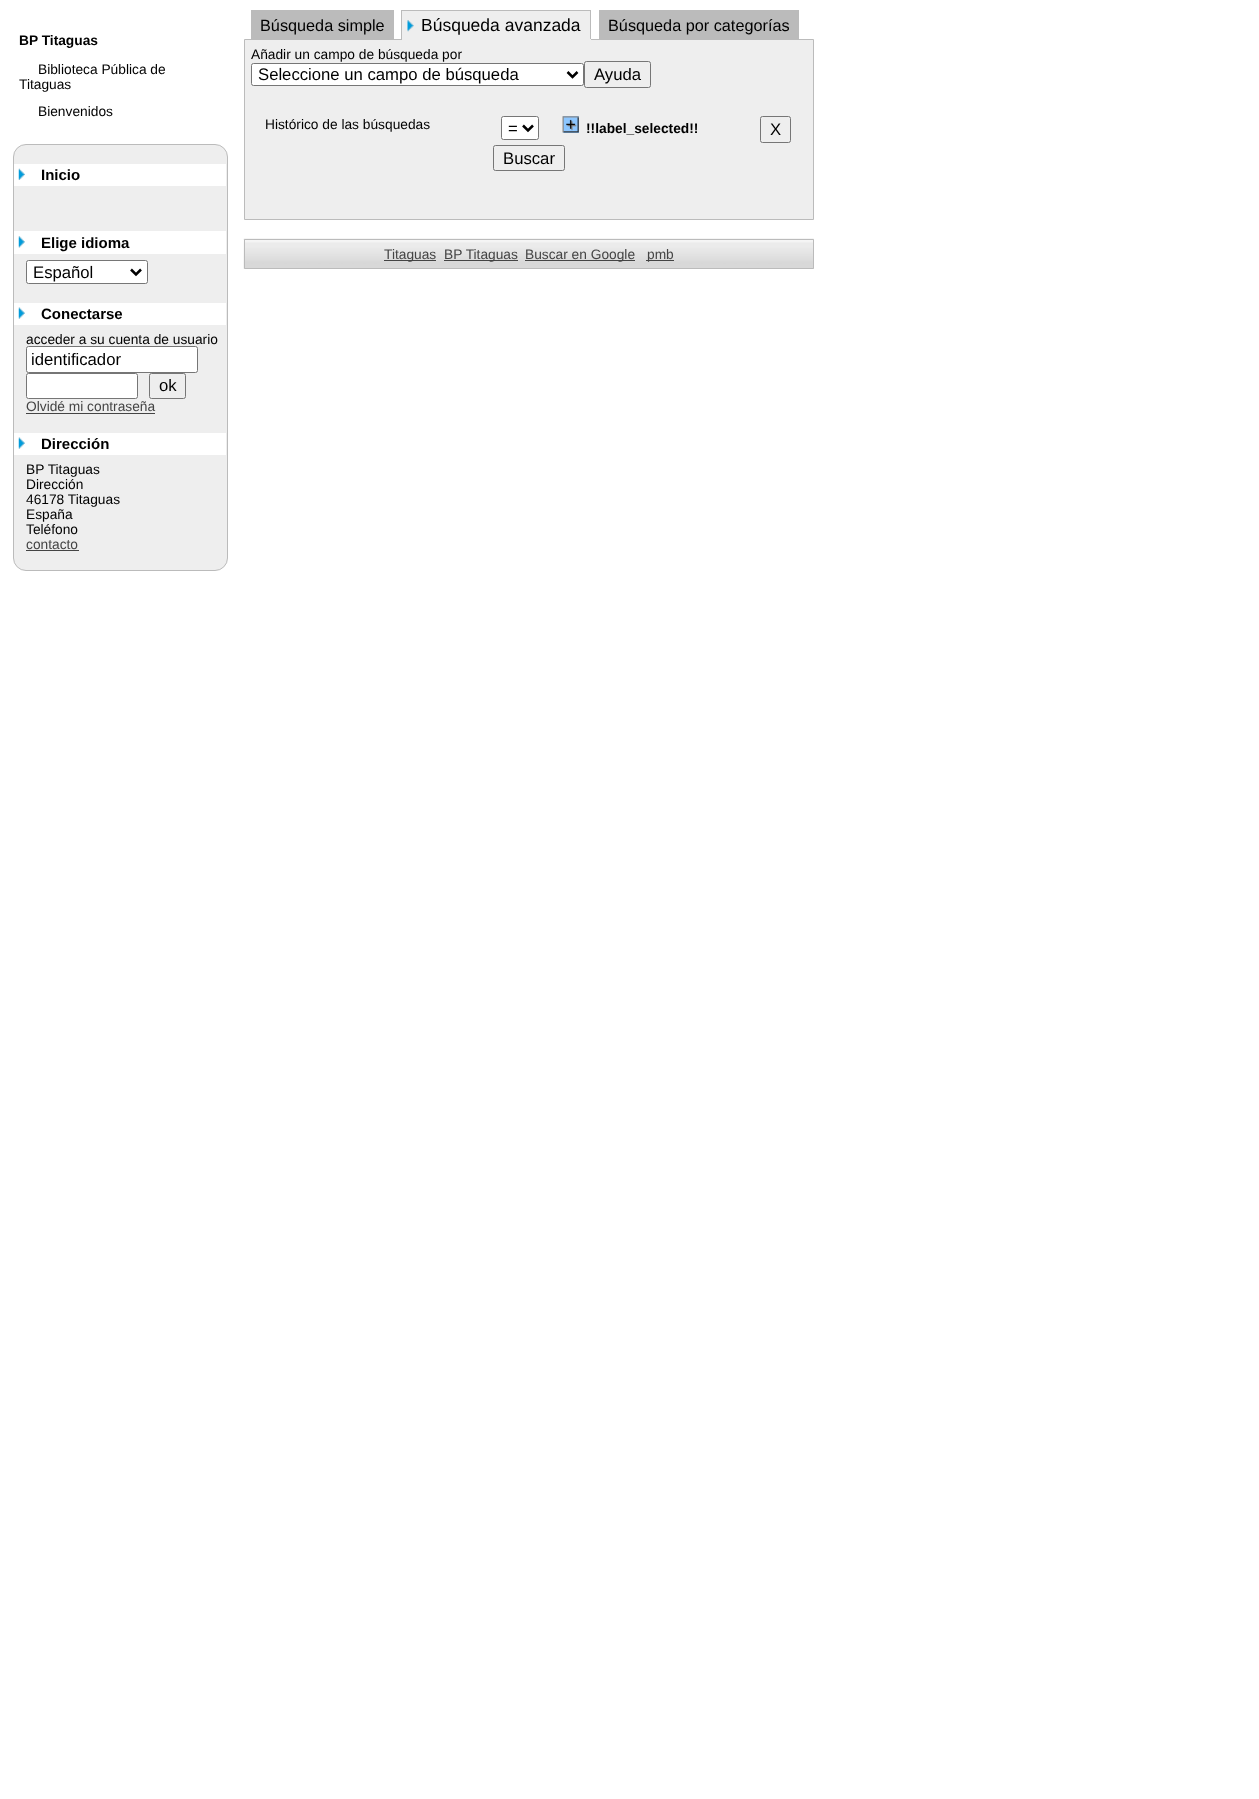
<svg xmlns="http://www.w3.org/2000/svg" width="1259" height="1799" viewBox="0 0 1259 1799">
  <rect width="100%" height="100%" fill="#fff"/>
  <path d="M244.5 39.5h569v180H244.5z" fill="#eee" stroke="#bbb"/>
  <path d="M251 10h143v29H251z" fill="#bbb"/>
  <path d="M402 11h188v28H402z" fill="#eee"/>
  <image x="407" y="20" width="7" height="12" href="img/1.png"/>
  <path d="M401 10h190v1H401z" fill="#bbb"/>
  <path d="M590 10h1v30H590z" fill="#bbb"/>
  <path d="M401 39h190v1H401z" fill="#eee"/>
  <path d="M401 10h1v30H401z" fill="#bbb"/>
  <path d="M599 10h200v29H599z" fill="#bbb"/>
  <rect x="251.5" y="63.5" width="332" height="22" rx="2" fill="#fff" stroke="#767676"/>
  <path d="M567.5 72L572.5 77L577.5 72" fill="none" stroke="#000" stroke-width="2.5"/>
  <rect x="584.5" y="61.5" width="66" height="26" rx="2" fill="none" stroke="#767676"/>
  <rect x="501.5" y="116.5" width="37" height="23" rx="2" fill="#fff" stroke="#767676"/>
  <path d="M523 125.5L528 130.5L533 125.5" fill="none" stroke="#000" stroke-width="2.5"/>
  <path d="M563 116h16v17H563z" fill="#8cc6ff"/>
  <image x="562" y="116" width="17" height="17" href="img/2.png"/>
  <rect x="760.5" y="116.5" width="30" height="26" rx="2" fill="none" stroke="#767676"/>
  <rect x="493.5" y="145.5" width="71" height="25" rx="2" fill="none" stroke="#767676"/>
  <image x="243" y="238" width="571" height="31" href="img/3.png"/>
  <path d="M244.5 239.5h569v29H244.5z" fill="none" stroke="#bbb"/>
  <path d="M384 260h52v1H384z" fill="#444"/>
  <path d="M444 260h74v1H444z" fill="#444"/>
  <path d="M525 260h110v1H525z" fill="#444"/>
  <path d="M646 260h28v1H646z" fill="#444"/>
  <rect x="13.5" y="144.5" width="214" height="426" rx="12.5" fill="#eee" stroke="#bbb"/>
  <path d="M14 164h212v22H14z" fill="#fff"/>
  <image x="18" y="168" width="7" height="12" href="img/4.png"/>
  <path d="M14 231h212v23H14z" fill="#fff"/>
  <image x="18" y="236" width="7" height="12" href="img/5.png"/>
  <rect x="26.5" y="260.5" width="121" height="23" rx="2" fill="#fff" stroke="#767676"/>
  <path d="M131 269.5L136 274.5L141 269.5" fill="none" stroke="#000" stroke-width="2.5"/>
  <path d="M14 303h212v22H14z" fill="#fff"/>
  <image x="18" y="307" width="7" height="12" href="img/6.png"/>
  <rect x="26.5" y="346.5" width="171" height="26" rx="2" fill="#fff" stroke="#767676"/>
  <rect x="26.5" y="373.5" width="111" height="25" rx="2" fill="#fff" stroke="#767676"/>
  <rect x="149.5" y="373.5" width="36" height="25" rx="2" fill="none" stroke="#767676"/>
  <path d="M26 413h129v1H26z" fill="#444"/>
  <path d="M14 433h212v22H14z" fill="#fff"/>
  <image x="18" y="437" width="7" height="12" href="img/6.png"/>
  <path d="M26 550h53v1H26z" fill="#444"/>
  <text x="19" y="45" font-family="Liberation Sans" font-size="13.75" font-weight="bold" fill="#000">BP Titaguas</text>
  <g font-family="Liberation Sans" font-size="13.75" fill="#000">
    <text x="38" y="74">Biblioteca Pública de</text>
    <text x="19" y="89">Titaguas</text>
    <text x="38" y="116">Bienvenidos</text>
  </g>
  <text x="260" y="31" font-family="Liberation Sans" font-size="16.25" fill="#000">Búsqueda simple</text>
  <text x="421" y="31" font-family="Liberation Sans" font-size="17.5" fill="#000">Búsqueda avanzada</text>
  <text x="608" y="31" font-family="Liberation Sans" font-size="16.25" fill="#000">Búsqueda por categorías</text>
  <text x="251" y="59" font-family="Liberation Sans" font-size="13.75" fill="#000">Añadir un campo de búsqueda por</text>
  <g font-family="Liberation Sans" font-size="16.7" fill="#000">
    <text x="258" y="80">Seleccione un campo de búsqueda</text>
    <text x="594" y="80">Ayuda</text>
  </g>
  <text x="265" y="129" font-family="Liberation Sans" font-size="13.75" fill="#000">Histórico de las búsquedas</text>
  <text x="508" y="134" font-family="Liberation Sans" font-size="16.7" fill="#000">=</text>
  <text x="586" y="133" font-family="Liberation Sans" font-size="13.75" font-weight="bold" fill="#000">!!label_selected!!</text>
  <g font-family="Liberation Sans" font-size="16.7" fill="#000">
    <text x="770" y="135">X</text>
    <text x="503" y="164">Buscar</text>
  </g>
  <g font-family="Liberation Sans" font-size="13.75" fill="#444">
    <text x="384" y="259">Titaguas</text>
    <text x="444" y="259">BP Titaguas</text>
    <text x="525" y="259">Buscar en Google</text>
    <text x="647" y="259">pmb</text>
  </g>
  <g font-family="Liberation Sans" font-size="15" font-weight="bold" fill="#000">
    <text x="41" y="180">Inicio</text>
    <text x="41" y="248">Elige idioma</text>
  </g>
  <text x="33" y="278" font-family="Liberation Sans" font-size="16.7" fill="#000">Español</text>
  <text x="41" y="319" font-family="Liberation Sans" font-size="15" font-weight="bold" fill="#000">Conectarse</text>
  <text x="26" y="344" font-family="Liberation Sans" font-size="13.75" fill="#000">acceder a su cuenta de usuario</text>
  <g font-family="Liberation Sans" font-size="16.7" fill="#000">
    <text x="31" y="365">identificador</text>
    <text x="159" y="391">ok</text>
  </g>
  <text x="26" y="411" font-family="Liberation Sans" font-size="13.75" fill="#444">Olvidé mi contraseña</text>
  <text x="41" y="449" font-family="Liberation Sans" font-size="15" font-weight="bold" fill="#000">Dirección</text>
  <g font-family="Liberation Sans" font-size="13.75" fill="#000">
    <text x="26" y="474">BP Titaguas</text>
    <text x="26" y="489">Dirección</text>
    <text x="26" y="504">46178 Titaguas</text>
    <text x="26" y="519">España</text>
    <text x="26" y="534">Teléfono</text>
  </g>
  <text x="26" y="549" font-family="Liberation Sans" font-size="13.75" fill="#444">contacto</text>
</svg>
